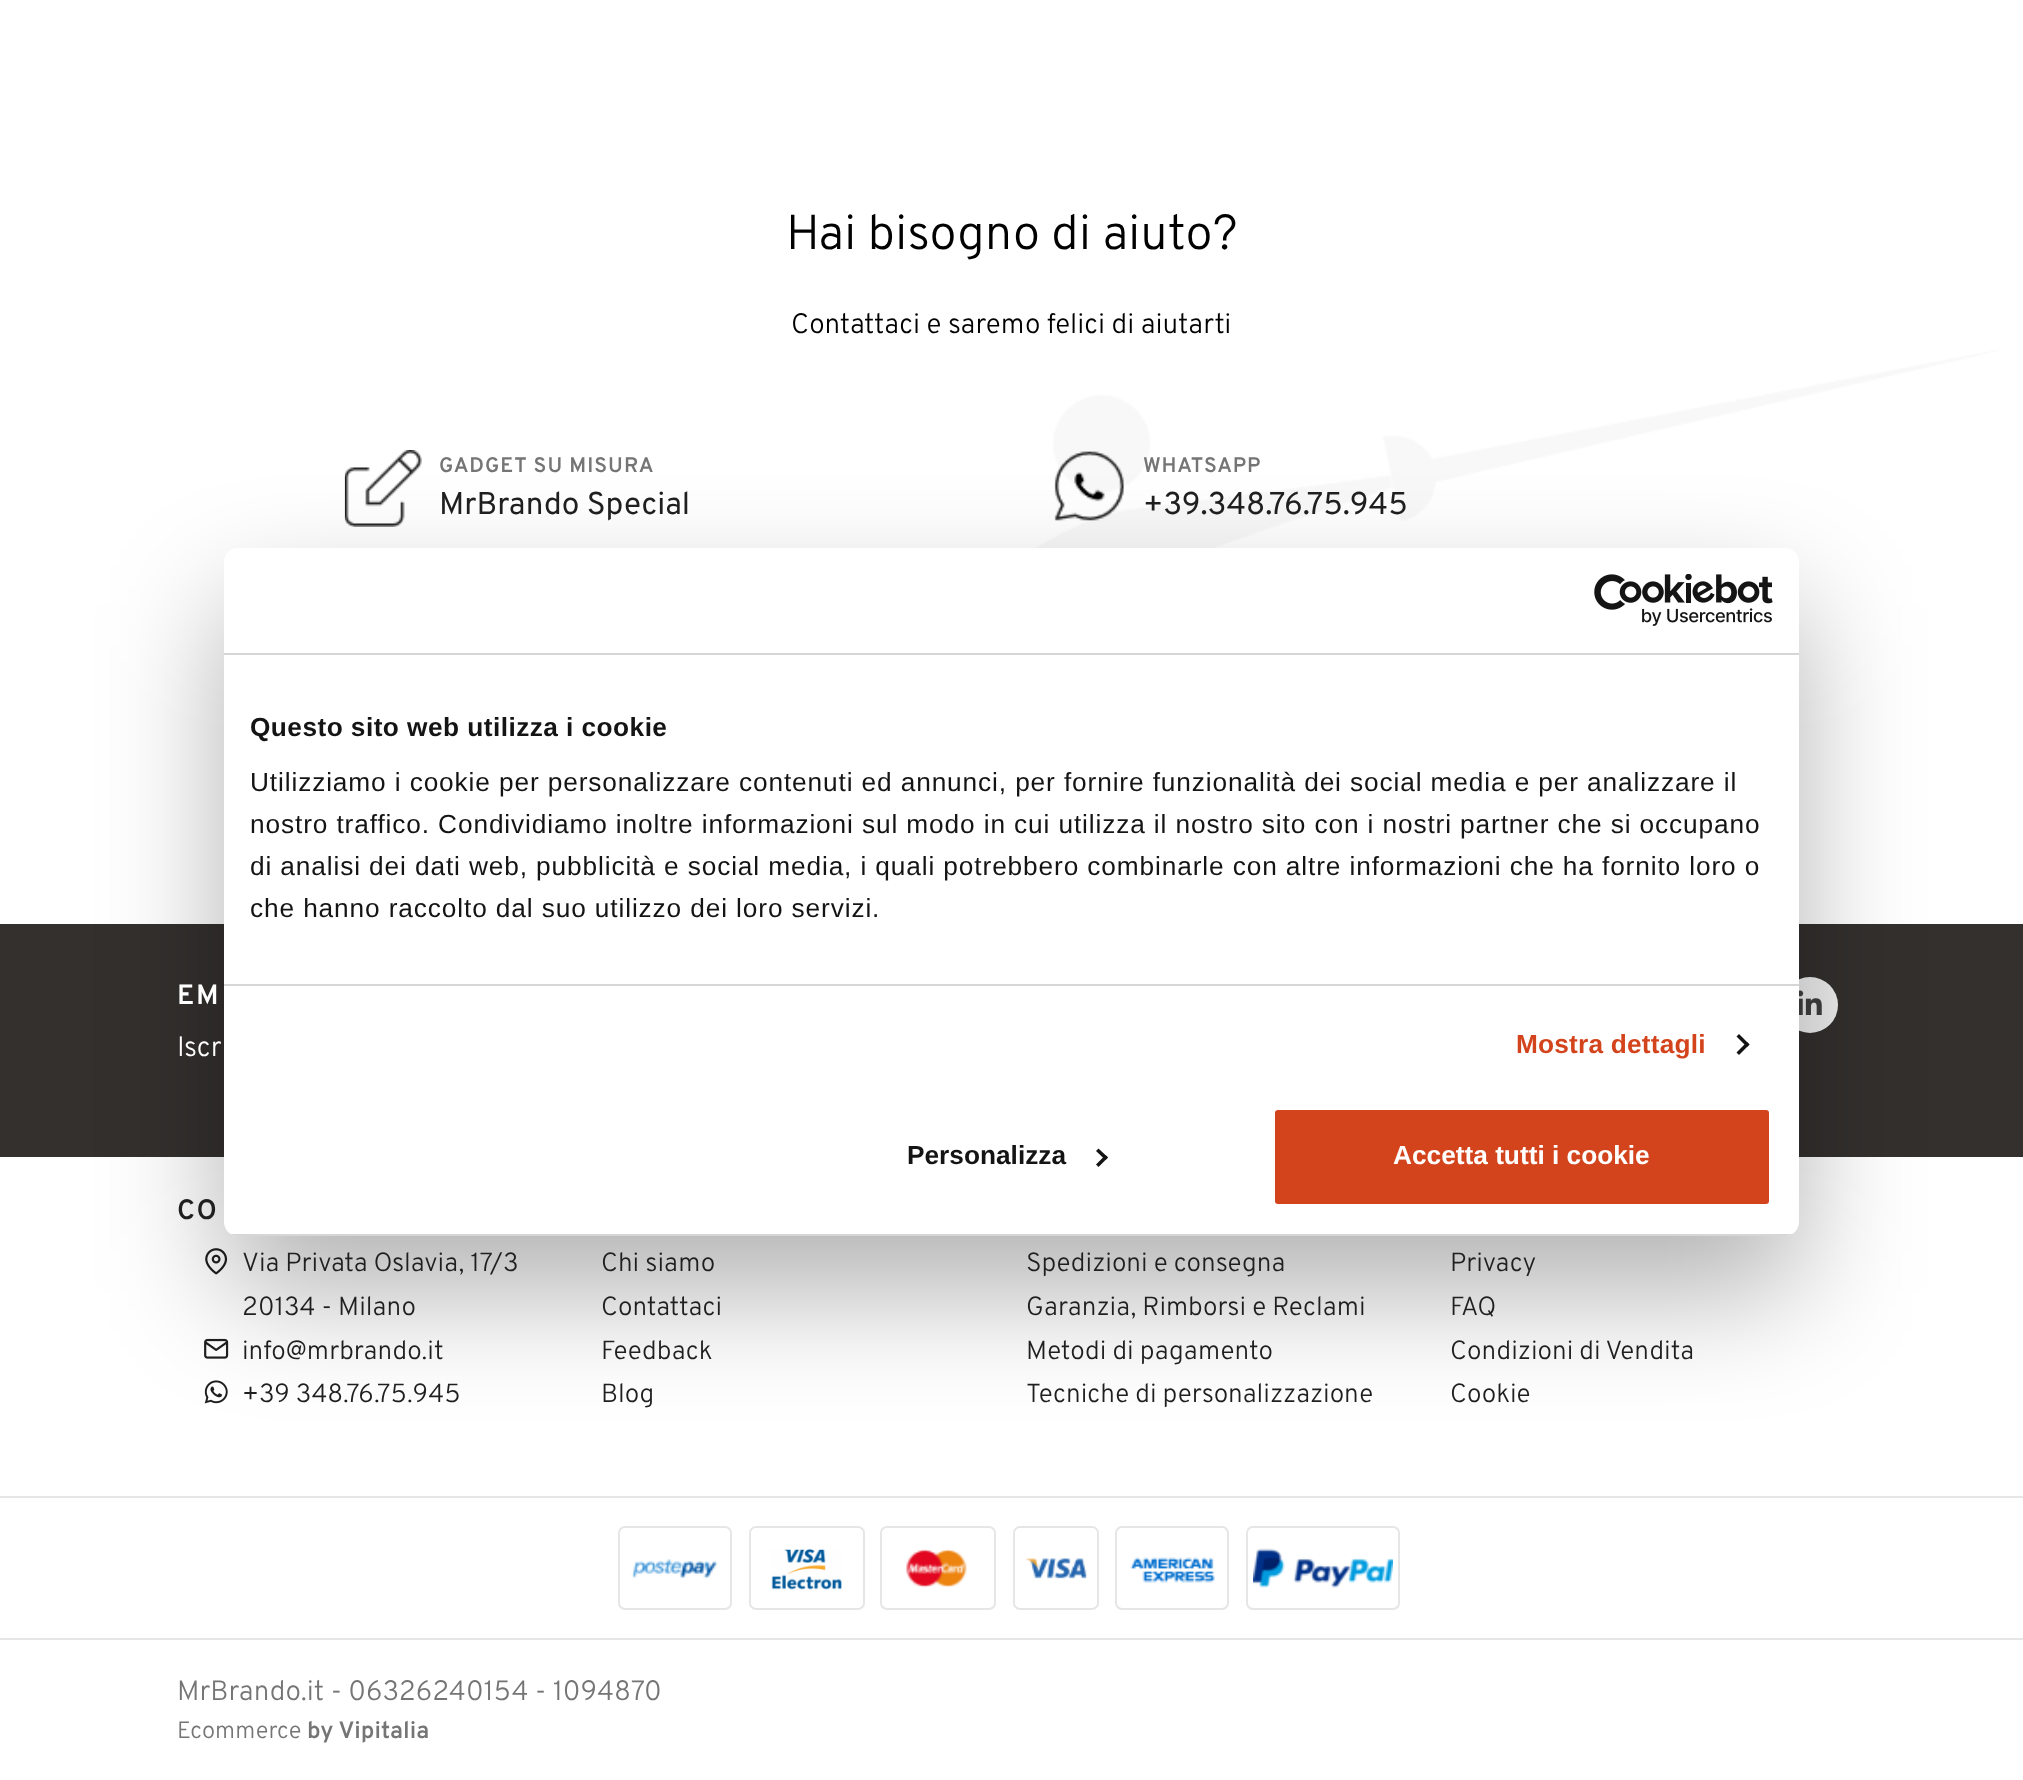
<svg xmlns="http://www.w3.org/2000/svg" width="2023" height="1780" viewBox="0 0 2023 1780">
  <defs>
    <clipPath id="clip1"><rect x="224" y="548" width="1575" height="688" rx="14"/></clipPath>
  </defs>
  <rect width="100%" height="100%" fill="#fff"/>
  <image x="1033" y="349" width="968" height="199" href="img/1.png"/>
  <image x="344" y="450" width="78" height="77" href="img/2.png"/>
  <image x="1054" y="451" width="70" height="70" href="img/3.png"/>
  <path d="M0 924h2023v233H0z" fill="#33302e"/>
  <circle cx="1810" cy="1005" r="28" fill="#f0f0f0"/>
  <image x="1799" y="990" width="23" height="25" href="img/4.png"/>
  <image x="205" y="1248" width="23" height="27" href="img/6.png"/>
  <image x="204" y="1338" width="25" height="21" href="img/7.png"/>
  <image x="204" y="1380" width="24" height="24" href="img/8.png"/>
  <rect x="224" y="604" width="1575" height="688" rx="14" fill="#0000004d" filter="blur(59.5px)"/>
  <rect x="224" y="548" width="1575" height="688" rx="14" fill="#fff"/>
  <path d="M224 653h1575v2H224z" fill="#d6d6d6"/>
  <image x="1594" y="574" width="179" height="52" href="img/5.png"/>
  <path d="M224 984h1575v2H224z" fill="#d6d6d6"/>
  <path d="M1739 1034L1749.5 1044.5L1747 1047L1736.5 1036.5Z" fill="#141414"/>
  <path d="M1747 1042L1749.5 1044.5L1739 1055L1736.5 1052.5Z" fill="#141414"/>
  <g clip-path="url(#clip1)">
    <path d="M224 1234h1575v2H224z" fill="#d6d6d6"/>
  </g>
  <path d="M1098.5 1148.5L1108 1157.5L1105.5 1160L1096 1151Z" fill="#141414"/>
  <path d="M1105.5 1155L1108 1157.5L1098.5 1167L1096 1164.5Z" fill="#141414"/>
  <rect x="1273" y="1108" width="498" height="98" rx="5" fill="#d4441c" stroke="#fff" stroke-width="4"/>
  <path d="M0 1496h2023v2H0z" fill="#e6e6e6"/>
  <rect x="619" y="1527" width="112" height="82" rx="6" fill="none" stroke="#e6e6e6" stroke-width="2"/>
  <image x="631" y="1559" width="87" height="20" href="img/9.png"/>
  <rect x="750" y="1527" width="114" height="82" rx="6" fill="none" stroke="#e6e6e6" stroke-width="2"/>
  <image x="771" y="1549" width="71" height="41" href="img/10.png"/>
  <rect x="881" y="1527" width="114" height="82" rx="6" fill="none" stroke="#e6e6e6" stroke-width="2"/>
  <image x="906" y="1549" width="61" height="39" href="img/11.png"/>
  <rect x="1014" y="1527" width="84" height="82" rx="6" fill="none" stroke="#e6e6e6" stroke-width="2"/>
  <image x="1026" y="1558" width="61" height="21" href="img/12.png"/>
  <rect x="1116" y="1527" width="112" height="82" rx="6" fill="none" stroke="#e6e6e6" stroke-width="2"/>
  <image x="1130" y="1557" width="85" height="26" href="img/13.png"/>
  <rect x="1247" y="1527" width="152" height="82" rx="6" fill="none" stroke="#e6e6e6" stroke-width="2"/>
  <image x="1253" y="1548" width="140" height="40" href="img/14.png"/>
  <path d="M0 1638h2023v2H0z" fill="#e6e6e6"/>
  <text x="786" y="249" font-family="Overpass" font-size="49" font-weight="300" fill="#000">Hai bisogno di aiuto?</text>
  <text x="791" y="333" font-family="Overpass" font-size="28" font-weight="300" fill="#000">Contattaci e saremo felici di aiutarti</text>
  <text x="439" y="472" font-family="Overpass" font-size="21" font-weight="600" letter-spacing="1" fill="#757575">GADGET SU MISURA</text>
  <text x="439" y="514" font-family="Overpass" font-size="31.5" fill="#1f1f1f">MrBrando Special</text>
  <text x="1143" y="472" font-family="Overpass" font-size="21" font-weight="600" letter-spacing="1" fill="#757575">WHATSAPP</text>
  <text x="1143" y="514" font-family="Overpass" font-size="31.5" fill="#1f1f1f">+39.348.76.75.945</text>
  <text x="177" y="1004" font-family="Overpass" font-size="28" font-weight="600" letter-spacing="2" fill="#fff">EM</text>
  <text x="177" y="1056" font-family="Overpass" font-size="28" font-weight="300" fill="#fff">Iscr</text>
  <text x="250" y="736" font-family="Liberation Sans" font-size="26.25" font-weight="bold" letter-spacing="0.45" fill="#141414">Questo sito web utilizza i cookie</text>
  <g font-family="Liberation Sans" font-size="26.25" letter-spacing="0.88" fill="#141414">
    <text x="250" y="791">Utilizziamo i cookie per personalizzare contenuti ed annunci, per fornire funzionalità dei social media e per analizzare il</text>
    <text x="250" y="833">nostro traffico. Condividiamo inoltre informazioni sul modo in cui utilizza il nostro sito con i nostri partner che si occupano</text>
    <text x="250" y="875">di analisi dei dati web, pubblicità e social media, i quali potrebbero combinarle con altre informazioni che ha fornito loro o</text>
    <text x="250" y="917">che hanno raccolto dal suo utilizzo dei loro servizi.</text>
  </g>
  <text x="1516" y="1053" font-family="Liberation Sans" font-size="26.25" font-weight="bold" letter-spacing="0.2" fill="#d4441c">Mostra dettagli</text>
  <text x="907" y="1164" font-family="Liberation Sans" font-size="26.25" font-weight="bold" fill="#141414">Personalizza</text>
  <text x="1393" y="1164" font-family="Liberation Sans" font-size="26.25" font-weight="bold" fill="#fff">Accetta tutti i cookie</text>
  <text x="177" y="1219" font-family="Overpass" font-size="28" font-weight="600" letter-spacing="2" fill="#1f1f1f">CO</text>
  <g font-family="Overpass" font-size="26.25" font-weight="300" fill="#1f1f1f">
    <text x="242" y="1271">Via Privata Oslavia, 17/3</text>
    <text x="242" y="1315">20134 - Milano</text>
    <text x="242" y="1359">info@mrbrando.it</text>
    <text x="242" y="1402">+39 348.76.75.945</text>
    <text x="601" y="1271">Chi siamo</text>
    <text x="601" y="1315">Contattaci</text>
    <text x="601" y="1359">Feedback</text>
    <text x="601" y="1402">Blog</text>
    <text x="1026" y="1271">Spedizioni e consegna</text>
    <text x="1026" y="1315">Garanzia, Rimborsi e Reclami</text>
    <text x="1026" y="1359">Metodi di pagamento</text>
    <text x="1026" y="1402">Tecniche di personalizzazione</text>
    <text x="1450" y="1271">Privacy</text>
    <text x="1450" y="1315">FAQ</text>
    <text x="1450" y="1359">Condizioni di Vendita</text>
    <text x="1450" y="1402">Cookie</text>
  </g>
  <text x="177" y="1700" font-family="Overpass" font-size="28" font-weight="300" fill="#757575">MrBrando.it - 06326240154 - 1094870</text>
  <text x="177" y="1738" font-family="Overpass" font-size="23.75" font-weight="300" fill="#757575">Ecommerce</text>
  <text x="307" y="1738" font-family="Overpass" font-size="23.75" font-weight="600" fill="#757575">by Vipitalia</text>
</svg>
